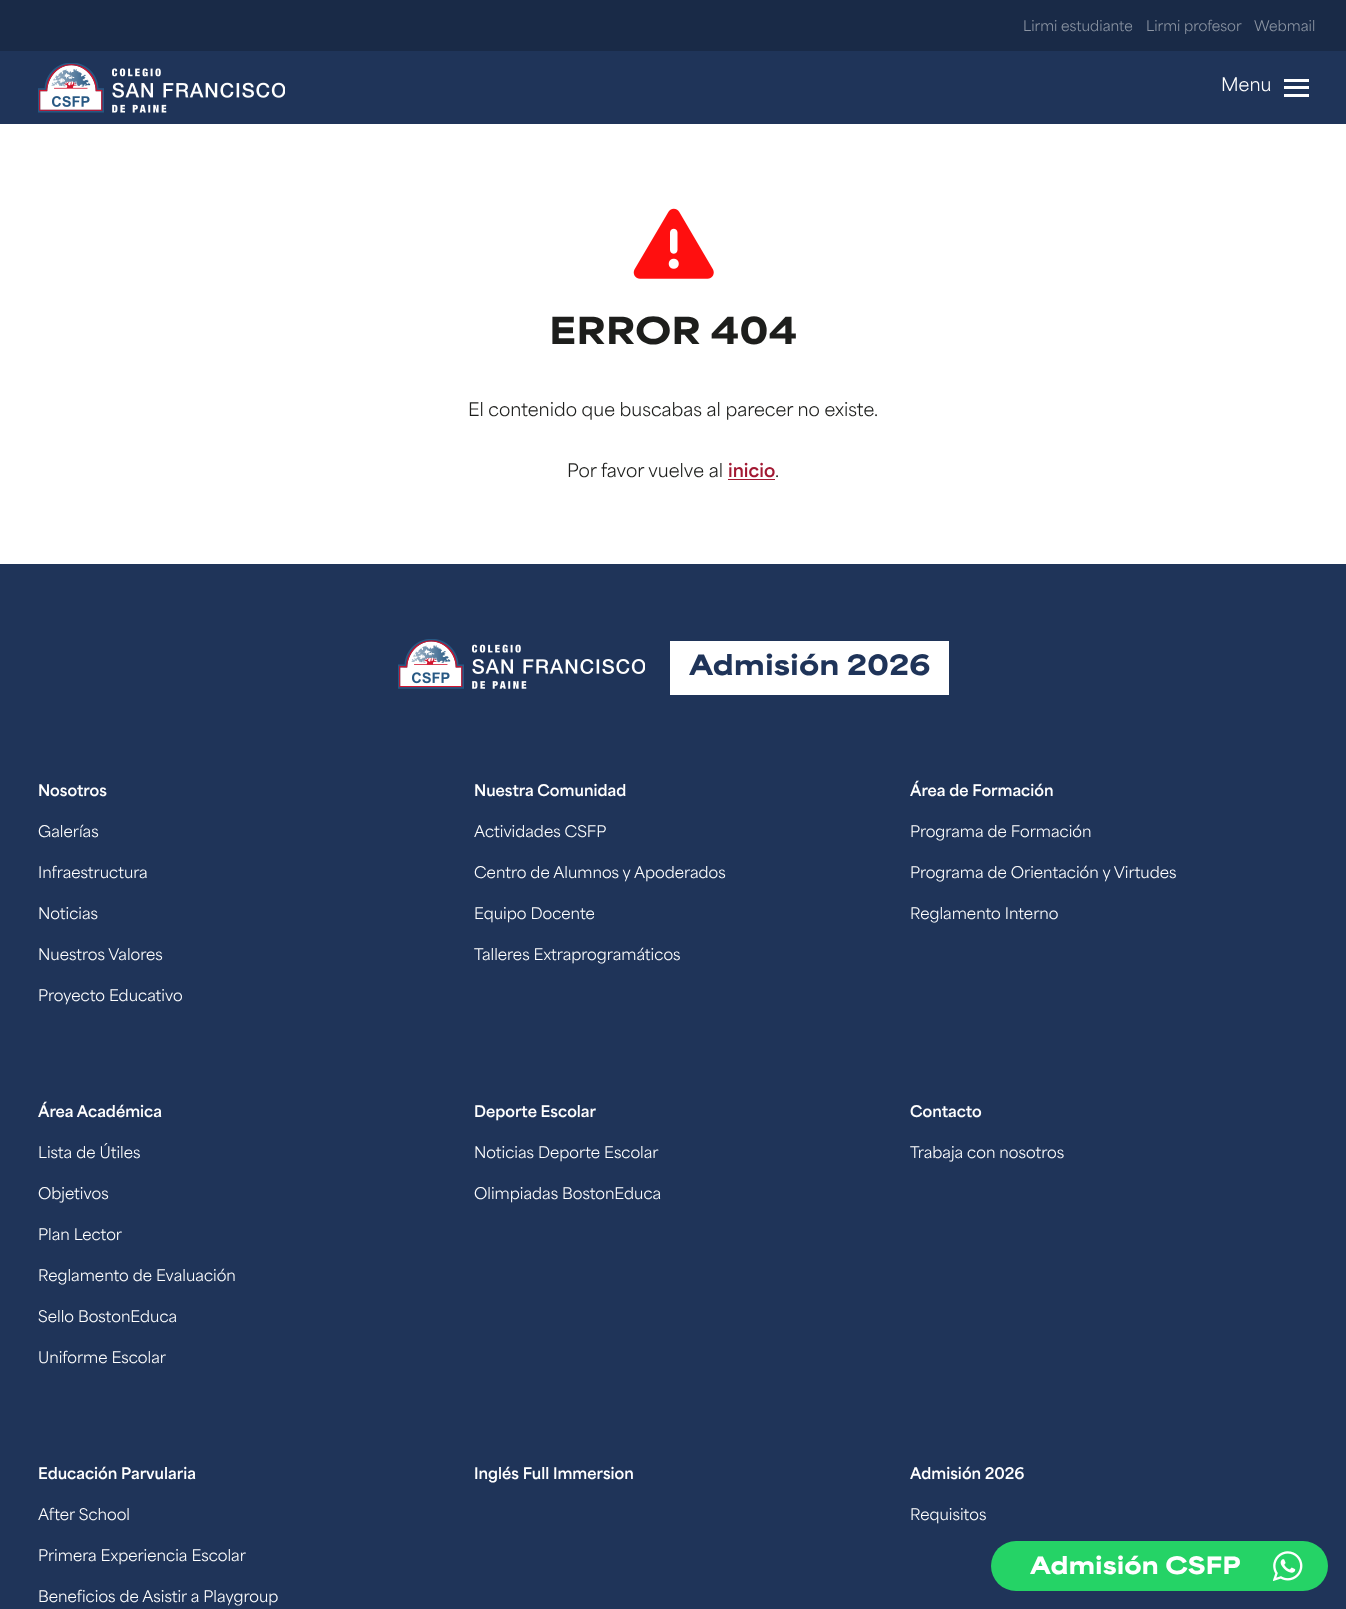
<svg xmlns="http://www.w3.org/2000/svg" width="1346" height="1609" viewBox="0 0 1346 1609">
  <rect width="100%" height="100%" fill="#1f3459"/>
  <path d="M0 0h1346v51H0z" fill="#192a47"/>
  <image x="38" y="63" width="247" height="50" href="img/1.png"/>
  <path d="M1284 79h25v3H1284z" fill="#fff"/>
  <path d="M1284 86h25v3H1284z" fill="#fff"/>
  <path d="M1284 94h25v3H1284z" fill="#fff"/>
  <path d="M0 124h1346v440H0z" fill="#fff"/>
  <image x="633" y="208" width="81" height="71" href="img/2.png"/>
  <path d="M728 479h47v1H728z" fill="#a21832"/>
  <image x="398" y="639" width="247" height="50" href="img/3.png"/>
  <path d="M670 641h279v54H670z" fill="#fff"/>
  <rect x="991" y="1541" width="337" height="50" rx="25" fill="#25d366"/>
  <image x="1273" y="1551" width="30" height="30" href="img/4.png"/>
  <g font-family="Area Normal" font-size="13.75" fill="#8c95a3">
    <text x="1023" y="31">Lirmi estudiante</text>
    <text x="1146" y="31">Lirmi profesor</text>
    <text x="1254" y="31">Webmail</text>
  </g>
  <text x="1221" y="91" font-family="Area Normal" font-size="17.5" fill="#fff">Menu</text>
  <text x="549" y="344" font-family="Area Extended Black" font-size="35" font-weight="900" fill="#1d1e1c">ERROR 404</text>
  <g font-family="Area Normal" font-size="17.5" fill="#1d1e1c">
    <text x="468" y="416">El contenido que buscabas al parecer no existe.</text>
    <text x="567" y="477">Por favor vuelve al</text>
  </g>
  <text x="728" y="477" font-family="Area Normal" font-size="17.5" font-weight="bold" fill="#a21832">inicio</text>
  <text x="775" y="477" font-family="Area Normal" font-size="17.5" fill="#1d1e1c">.</text>
  <text x="689" y="675" font-family="Area Extended Black" font-size="26.25" font-weight="900" fill="#1f3459">Admisión 2026</text>
  <text x="38" y="796" font-family="Area Normal" font-size="15" font-weight="bold" fill="#fff">Nosotros</text>
  <g font-family="Area Normal" font-size="15" fill="#fff">
    <text x="38" y="837">Galerías</text>
    <text x="38" y="878">Infraestructura</text>
    <text x="38" y="919">Noticias</text>
    <text x="38" y="960">Nuestros Valores</text>
    <text x="38" y="1001">Proyecto Educativo</text>
  </g>
  <text x="474" y="796" font-family="Area Normal" font-size="15" font-weight="bold" fill="#fff">Nuestra Comunidad</text>
  <g font-family="Area Normal" font-size="15" fill="#fff">
    <text x="474" y="837">Actividades CSFP</text>
    <text x="474" y="878">Centro de Alumnos y Apoderados</text>
    <text x="474" y="919">Equipo Docente</text>
    <text x="474" y="960">Talleres Extraprogramáticos</text>
  </g>
  <text x="910" y="796" font-family="Area Normal" font-size="15" font-weight="bold" fill="#fff">Área de Formación</text>
  <g font-family="Area Normal" font-size="15" fill="#fff">
    <text x="910" y="837">Programa de Formación</text>
    <text x="910" y="878">Programa de Orientación y Virtudes</text>
    <text x="910" y="919">Reglamento Interno</text>
  </g>
  <text x="38" y="1117" font-family="Area Normal" font-size="15" font-weight="bold" fill="#fff">Área Académica</text>
  <g font-family="Area Normal" font-size="15" fill="#fff">
    <text x="38" y="1158">Lista de Útiles</text>
    <text x="38" y="1199">Objetivos</text>
    <text x="38" y="1240">Plan Lector</text>
    <text x="38" y="1281">Reglamento de Evaluación</text>
    <text x="38" y="1322">Sello BostonEduca</text>
    <text x="38" y="1363">Uniforme Escolar</text>
  </g>
  <text x="474" y="1117" font-family="Area Normal" font-size="15" font-weight="bold" fill="#fff">Deporte Escolar</text>
  <g font-family="Area Normal" font-size="15" fill="#fff">
    <text x="474" y="1158">Noticias Deporte Escolar</text>
    <text x="474" y="1199">Olimpiadas BostonEduca</text>
  </g>
  <text x="910" y="1117" font-family="Area Normal" font-size="15" font-weight="bold" fill="#fff">Contacto</text>
  <text x="910" y="1158" font-family="Area Normal" font-size="15" fill="#fff">Trabaja con nosotros</text>
  <text x="38" y="1479" font-family="Area Normal" font-size="15" font-weight="bold" fill="#fff">Educación Parvularia</text>
  <g font-family="Area Normal" font-size="15" fill="#fff">
    <text x="38" y="1520">After School</text>
    <text x="38" y="1561">Primera Experiencia Escolar</text>
    <text x="38" y="1602">Beneficios de Asistir a Playgroup</text>
  </g>
  <g font-family="Area Normal" font-size="15" font-weight="bold" fill="#fff">
    <text x="474" y="1479">Inglés Full Immersion</text>
    <text x="910" y="1479">Admisión 2026</text>
  </g>
  <text x="910" y="1520" font-family="Area Normal" font-size="15" fill="#fff">Requisitos</text>
  <text x="1030" y="1574" font-family="Area Extended Black" font-size="22.5" font-weight="900" fill="#fff">Admisión CSFP</text>
</svg>
